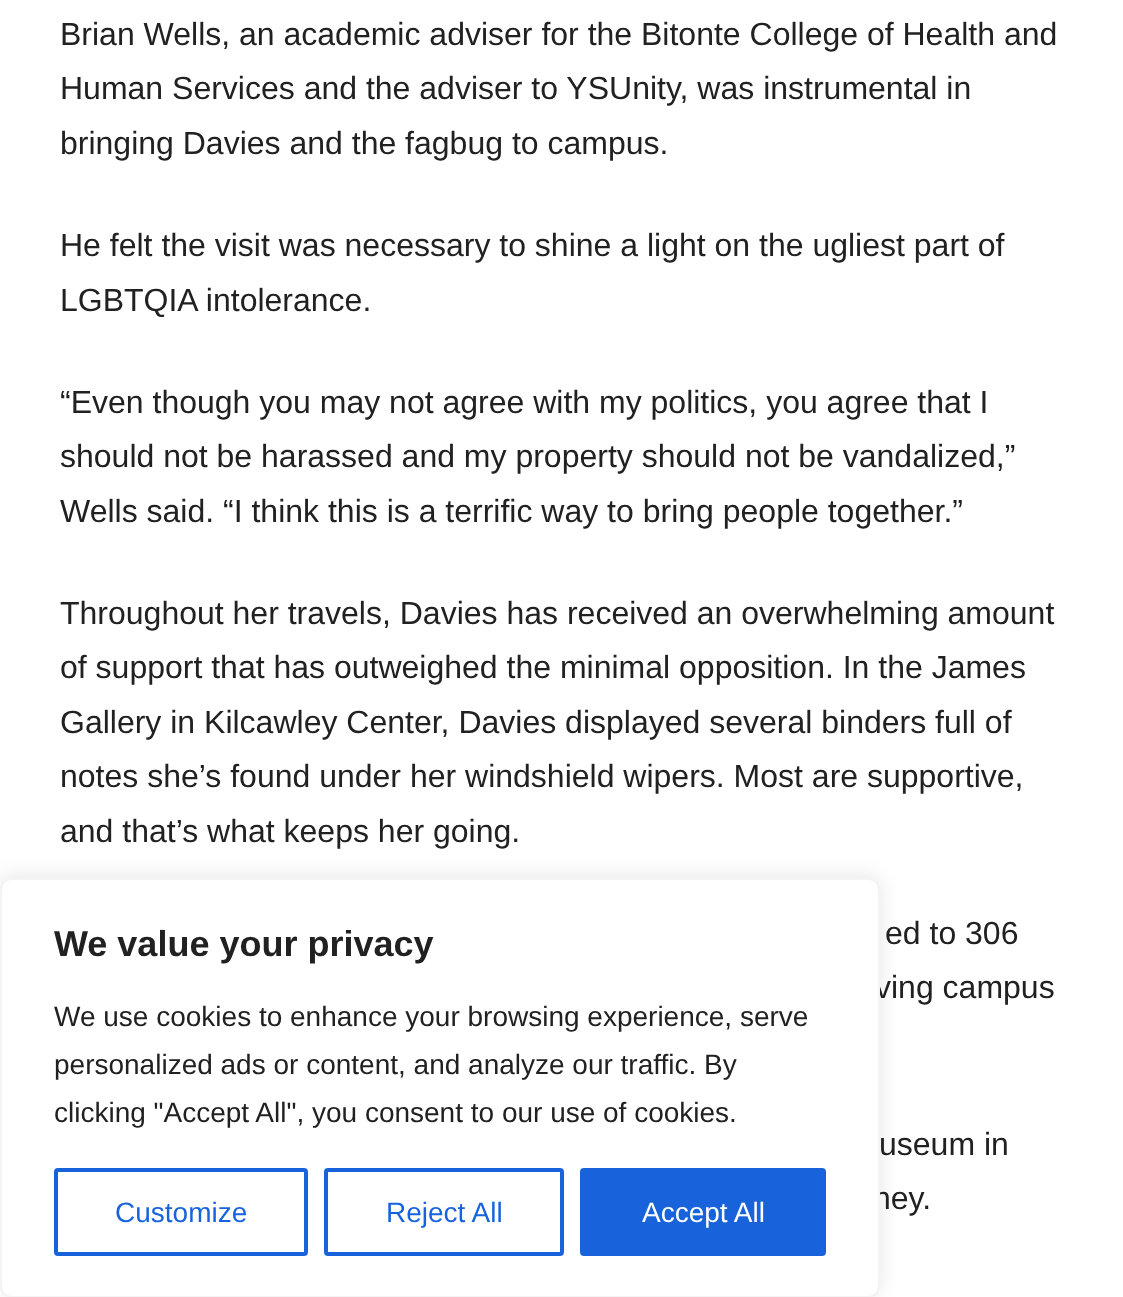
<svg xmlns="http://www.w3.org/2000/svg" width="1123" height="1297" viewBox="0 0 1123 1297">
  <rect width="100%" height="100%" fill="#fff"/>
  <rect y="876" width="880" height="420" rx="12" fill="#acabab4d" filter="blur(10px)"/>
  <g font-family="Liberation Sans" font-size="32" fill="#212121">
    <text x="60" y="45">Brian Wells, an academic adviser for the Bitonte College of Health and</text>
    <text x="60" y="99">Human Services and the adviser to YSUnity, was instrumental in</text>
    <text x="60" y="154">bringing Davies and the fagbug to campus.</text>
    <text x="60" y="256">He felt the visit was necessary to shine a light on the ugliest part of</text>
    <text x="60" y="311">LGBTQIA intolerance.</text>
    <text x="60" y="413">“Even though you may not agree with my politics, you agree that I</text>
    <text x="60" y="467">should not be harassed and my property should not be vandalized,”</text>
    <text x="60" y="522">Wells said. “I think this is a terrific way to bring people together.”</text>
    <text x="60" y="624">Throughout her travels, Davies has received an overwhelming amount</text>
    <text x="60" y="678">of support that has outweighed the minimal opposition. In the James</text>
    <text x="60" y="733">Gallery in Kilcawley Center, Davies displayed several binders full of</text>
    <text x="60" y="787">notes she’s found under her windshield wipers. Most are supportive,</text>
    <text x="60" y="842">and that’s what keeps her going.</text>
    <text x="885" y="944">ed to 306</text>
    <text x="875" y="998">ving campus</text>
    <text x="879" y="1155">useum in</text>
    <text x="873" y="1209">ney.</text>
  </g>
  <rect x="1" y="879" width="878" height="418" rx="11" fill="#fff" stroke="#f4f4f4" stroke-width="2"/>
  <text x="54" y="956" font-family="Liberation Sans" font-size="36" font-weight="bold" fill="#212121">We value your privacy</text>
  <g font-family="Liberation Sans" font-size="28" fill="#212121">
    <text x="54" y="1026">We use cookies to enhance your browsing experience, serve</text>
    <text x="54" y="1074">personalized ads or content, and analyze our traffic. By</text>
    <text x="54" y="1122">clicking "Accept All", you consent to our use of cookies.</text>
  </g>
  <rect x="56" y="1170" width="250" height="84" rx="2" fill="none" stroke="#1863dc" stroke-width="4"/>
  <text x="115" y="1222" font-family="Liberation Sans" font-size="28" fill="#1863dc">Customize</text>
  <rect x="326" y="1170" width="236" height="84" rx="2" fill="none" stroke="#1863dc" stroke-width="4"/>
  <text x="386" y="1222" font-family="Liberation Sans" font-size="28" fill="#1863dc">Reject All</text>
  <rect x="582" y="1170" width="242" height="84" rx="2" fill="#1863dc" stroke="#1863dc" stroke-width="4"/>
  <text x="642" y="1222" font-family="Liberation Sans" font-size="28" fill="#fff">Accept All</text>
</svg>
